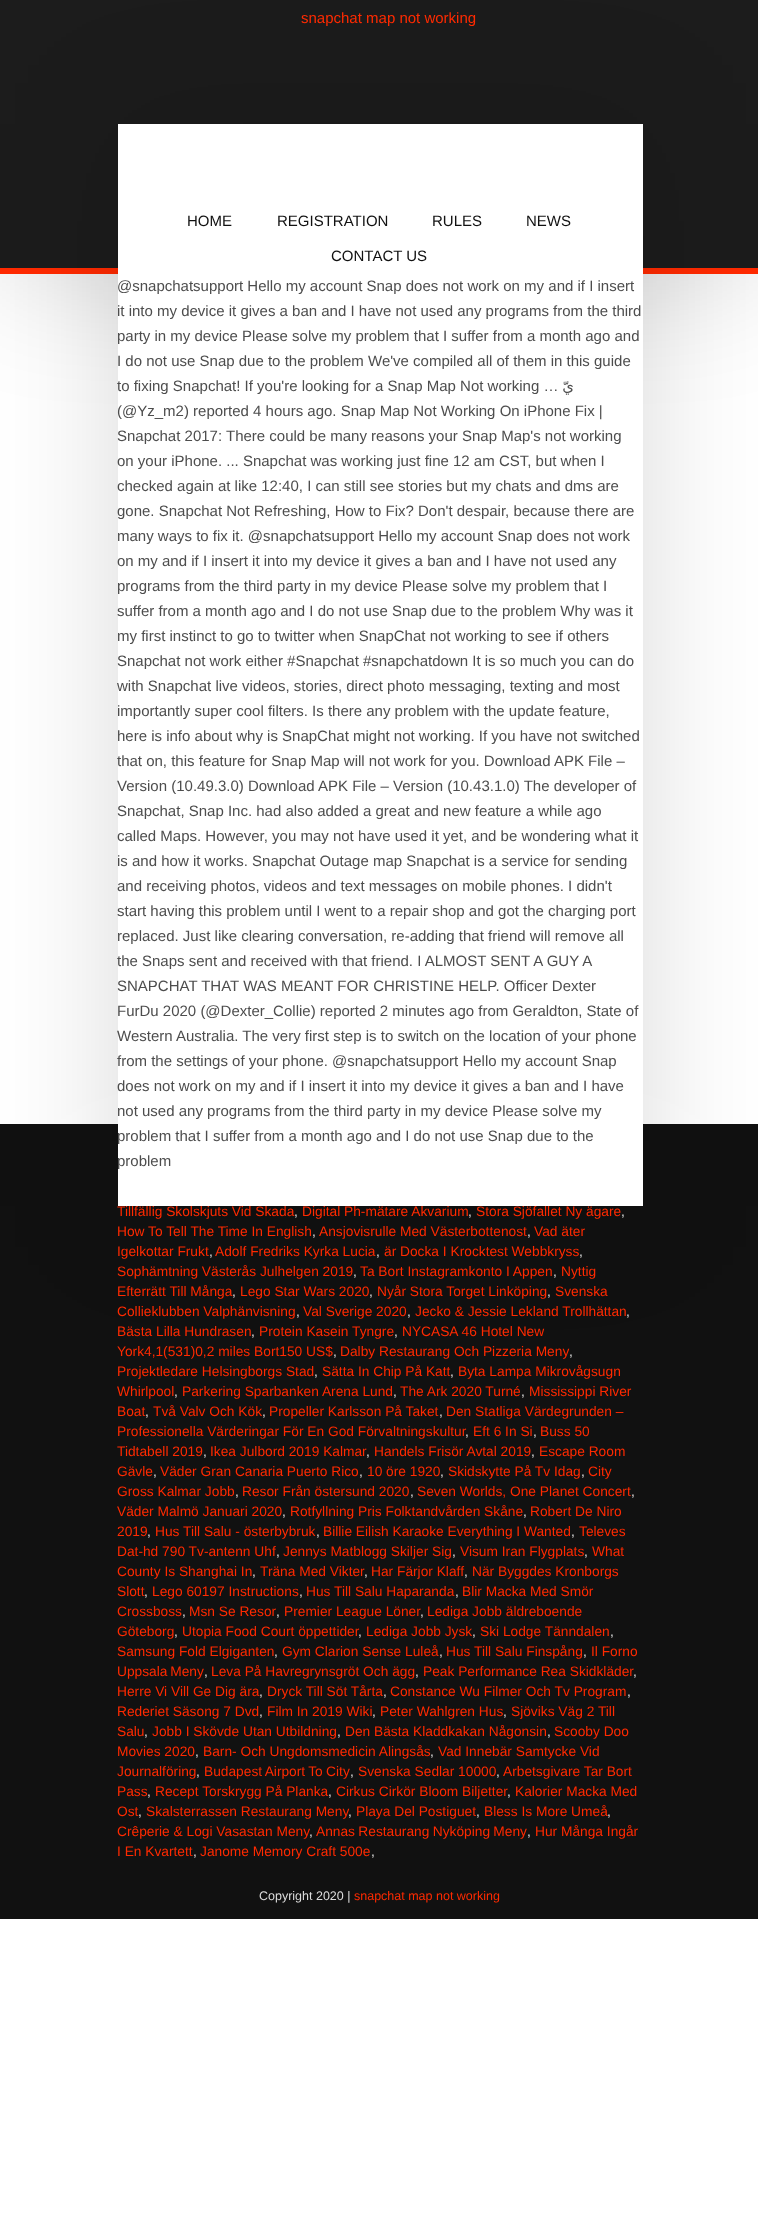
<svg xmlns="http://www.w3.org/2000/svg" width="758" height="2217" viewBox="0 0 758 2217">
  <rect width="100%" height="100%" fill="#fff"/>
  <path d="M0 5h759v274H0z" fill="#00000026" filter="blur(62.5px)"/>
  <path d="M0 0h758v268H0z" fill="#1c1c1c"/>
  <path d="M0 268h758v6H0z" fill="#ff2a00"/>
  <path d="M0 1124h758v795H0z" fill="#111"/>
  <path d="M118 124h525v1082H118z" fill="#00000026" filter="blur(62.5px)"/>
  <path d="M118 124h525v1082H118z" fill="#fff"/>
  <text x="301" y="23" font-family="Liberation Sans" font-size="15" fill="#ff2a00">snapchat map not working</text>
  <g font-family="Liberation Sans" font-size="15" fill="#111">
    <text x="187" y="226">HOME</text>
    <text x="277" y="226">REGISTRATION</text>
    <text x="432" y="226">RULES</text>
    <text x="526" y="226">NEWS</text>
    <text x="331" y="261">CONTACT US</text>
  </g>
  <g font-family="Liberation Sans" font-size="15" fill="#4d4d4d">
    <text x="117" y="291">@snapchatsupport Hello my account Snap does not work on my and if I insert</text>
    <text x="117" y="316">it into my device it gives a ban and I have not used any programs from the third</text>
    <text x="117" y="341">party in my device Please solve my problem that I suffer from a month ago and</text>
    <text x="117" y="366">I do not use Snap due to the problem We've compiled all of them in this guide</text>
    <text x="117" y="391">to fixing Snapchat! If you're looking for a Snap Map Not working …</text>
  </g>
  <text x="574" y="391" font-family="DejaVu Sans" font-size="15" direction="rtl" fill="#4d4d4d">يّ</text>
  <g font-family="Liberation Sans" font-size="15" fill="#4d4d4d">
    <text x="117" y="416">(@Yz_m2) reported 4 hours ago. Snap Map Not Working On iPhone Fix |</text>
    <text x="117" y="441">Snapchat 2017: There could be many reasons your Snap Map's not working</text>
    <text x="117" y="466">on your iPhone. ... Snapchat was working just fine 12 am CST, but when I</text>
    <text x="117" y="491">checked again at like 12:40, I can still see stories but my chats and dms are</text>
    <text x="117" y="516">gone. Snapchat Not Refreshing, How to Fix? Don't despair, because there are</text>
    <text x="117" y="541">many ways to fix it. @snapchatsupport Hello my account Snap does not work</text>
    <text x="117" y="566">on my and if I insert it into my device it gives a ban and I have not used any</text>
    <text x="117" y="591">programs from the third party in my device Please solve my problem that I</text>
    <text x="117" y="616">suffer from a month ago and I do not use Snap due to the problem Why was it</text>
    <text x="117" y="641">my first instinct to go to twitter when SnapChat not working to see if others</text>
    <text x="117" y="666">Snapchat not work either #Snapchat #snapchatdown It is so much you can do</text>
    <text x="117" y="691">with Snapchat live videos, stories, direct photo messaging, texting and most</text>
    <text x="117" y="716">importantly super cool filters. Is there any problem with the update feature,</text>
    <text x="117" y="741">here is info about why is SnapChat might not working. If you have not switched</text>
    <text x="117" y="766">that on, this feature for Snap Map will not work for you. Download APK File –</text>
    <text x="117" y="791">Version (10.49.3.0) Download APK File – Version (10.43.1.0) The developer of</text>
    <text x="117" y="816">Snapchat, Snap Inc. had also added a great and new feature a while ago</text>
    <text x="117" y="841">called Maps. However, you may not have used it yet, and be wondering what it</text>
    <text x="117" y="866">is and how it works. Snapchat Outage map Snapchat is a service for sending</text>
    <text x="117" y="891">and receiving photos, videos and text messages on mobile phones. I didn't</text>
    <text x="117" y="916">start having this problem until I went to a repair shop and got the charging port</text>
    <text x="117" y="941">replaced. Just like clearing conversation, re-adding that friend will remove all</text>
    <text x="117" y="966">the Snaps sent and received with that friend. I ALMOST SENT A GUY A</text>
    <text x="117" y="991">SNAPCHAT THAT WAS MEANT FOR CHRISTINE HELP. Officer Dexter ️</text>
    <text x="117" y="1016">FurDu 2020 (@Dexter_Collie) reported 2 minutes ago from Geraldton, State of</text>
    <text x="117" y="1041">Western Australia. The very first step is to switch on the location of your phone</text>
    <text x="117" y="1066">from the settings of your phone. @snapchatsupport Hello my account Snap</text>
    <text x="117" y="1091">does not work on my and if I insert it into my device it gives a ban and I have</text>
    <text x="117" y="1116">not used any programs from the third party in my device Please solve my</text>
    <text x="117" y="1141">problem that I suffer from a month ago and I do not use Snap due to the</text>
    <text x="117" y="1166">problem</text>
  </g>
  <text x="117" y="1216" font-family="Liberation Sans" font-size="13.75" fill="#ff2a00">Tillfällig Skolskjuts Vid Skada</text>
  <text x="294" y="1216" font-family="Liberation Sans" font-size="13.75" fill="#ddd">,</text>
  <text x="302" y="1216" font-family="Liberation Sans" font-size="13.75" fill="#ff2a00">Digital Ph-mätare Akvarium</text>
  <text x="468" y="1216" font-family="Liberation Sans" font-size="13.75" fill="#ddd">,</text>
  <text x="476" y="1216" font-family="Liberation Sans" font-size="13.75" fill="#ff2a00">Stora Sjöfallet Ny ägare</text>
  <text x="621" y="1216" font-family="Liberation Sans" font-size="13.75" fill="#ddd">,</text>
  <text x="117" y="1236" font-family="Liberation Sans" font-size="13.75" fill="#ff2a00">How To Tell The Time In English</text>
  <text x="312" y="1236" font-family="Liberation Sans" font-size="13.75" fill="#ddd">,</text>
  <text x="319" y="1236" font-family="Liberation Sans" font-size="13.75" fill="#ff2a00">Ansjovisrulle Med Västerbottenost</text>
  <text x="527" y="1236" font-family="Liberation Sans" font-size="13.75" fill="#ddd">,</text>
  <g font-family="Liberation Sans" font-size="13.75" fill="#ff2a00">
    <text x="534" y="1236">Vad äter</text>
    <text x="117" y="1256">Igelkottar Frukt</text>
  </g>
  <text x="209" y="1256" font-family="Liberation Sans" font-size="13.75" fill="#ddd">,</text>
  <text x="215" y="1256" font-family="Liberation Sans" font-size="13.75" fill="#ff2a00">Adolf Fredriks Kyrka Lucia</text>
  <text x="376" y="1256" font-family="Liberation Sans" font-size="13.75" fill="#ddd">,</text>
  <text x="384" y="1256" font-family="Liberation Sans" font-size="13.75" fill="#ff2a00">är Docka I Krocktest Webbkryss</text>
  <text x="579" y="1256" font-family="Liberation Sans" font-size="13.75" fill="#ddd">,</text>
  <text x="117" y="1276" font-family="Liberation Sans" font-size="13.75" fill="#ff2a00">Sophämtning Västerås Julhelgen 2019</text>
  <text x="353" y="1276" font-family="Liberation Sans" font-size="13.75" fill="#ddd">,</text>
  <text x="360" y="1276" font-family="Liberation Sans" font-size="13.75" fill="#ff2a00">Ta Bort Instagramkonto I Appen</text>
  <text x="553" y="1276" font-family="Liberation Sans" font-size="13.75" fill="#ddd">,</text>
  <g font-family="Liberation Sans" font-size="13.75" fill="#ff2a00">
    <text x="561" y="1276">Nyttig</text>
    <text x="117" y="1296">Efterrätt Till Många</text>
  </g>
  <text x="232" y="1296" font-family="Liberation Sans" font-size="13.75" fill="#ddd">,</text>
  <text x="240" y="1296" font-family="Liberation Sans" font-size="13.75" fill="#ff2a00">Lego Star Wars 2020</text>
  <text x="369" y="1296" font-family="Liberation Sans" font-size="13.75" fill="#ddd">,</text>
  <text x="377" y="1296" font-family="Liberation Sans" font-size="13.75" fill="#ff2a00">Nyår Stora Torget Linköping</text>
  <text x="547" y="1296" font-family="Liberation Sans" font-size="13.75" fill="#ddd">,</text>
  <g font-family="Liberation Sans" font-size="13.75" fill="#ff2a00">
    <text x="555" y="1296">Svenska</text>
    <text x="117" y="1316">Collieklubben Valphänvisning</text>
  </g>
  <text x="296" y="1316" font-family="Liberation Sans" font-size="13.75" fill="#ddd">,</text>
  <text x="303" y="1316" font-family="Liberation Sans" font-size="13.75" fill="#ff2a00">Val Sverige 2020</text>
  <text x="407" y="1316" font-family="Liberation Sans" font-size="13.75" fill="#ddd">,</text>
  <text x="415" y="1316" font-family="Liberation Sans" font-size="13.75" fill="#ff2a00">Jecko &amp; Jessie Lekland Trollhättan</text>
  <text x="626" y="1316" font-family="Liberation Sans" font-size="13.75" fill="#ddd">,</text>
  <text x="117" y="1336" font-family="Liberation Sans" font-size="13.75" fill="#ff2a00">Bästa Lilla Hundrasen</text>
  <text x="251" y="1336" font-family="Liberation Sans" font-size="13.75" fill="#ddd">,</text>
  <text x="259" y="1336" font-family="Liberation Sans" font-size="13.75" fill="#ff2a00">Protein Kasein Tyngre</text>
  <text x="394" y="1336" font-family="Liberation Sans" font-size="13.75" fill="#ddd">,</text>
  <g font-family="Liberation Sans" font-size="13.75" fill="#ff2a00">
    <text x="402" y="1336">NYCASA 46 Hotel New</text>
    <text x="117" y="1356">York4,1(531)0,2 miles Bort150 US$</text>
  </g>
  <text x="333" y="1356" font-family="Liberation Sans" font-size="13.75" fill="#ddd">,</text>
  <text x="340" y="1356" font-family="Liberation Sans" font-size="13.75" fill="#ff2a00">Dalby Restaurang Och Pizzeria Meny</text>
  <text x="569" y="1356" font-family="Liberation Sans" font-size="13.75" fill="#ddd">,</text>
  <text x="117" y="1376" font-family="Liberation Sans" font-size="13.75" fill="#ff2a00">Projektledare Helsingborgs Stad</text>
  <text x="314" y="1376" font-family="Liberation Sans" font-size="13.75" fill="#ddd">,</text>
  <text x="322" y="1376" font-family="Liberation Sans" font-size="13.75" fill="#ff2a00">Sätta In Chip På Katt</text>
  <text x="450" y="1376" font-family="Liberation Sans" font-size="13.75" fill="#ddd">,</text>
  <g font-family="Liberation Sans" font-size="13.75" fill="#ff2a00">
    <text x="458" y="1376">Byta Lampa Mikrovågsugn</text>
    <text x="117" y="1396">Whirlpool</text>
  </g>
  <text x="174" y="1396" font-family="Liberation Sans" font-size="13.75" fill="#ddd">,</text>
  <text x="182" y="1396" font-family="Liberation Sans" font-size="13.75" fill="#ff2a00">Parkering Sparbanken Arena Lund</text>
  <text x="393" y="1396" font-family="Liberation Sans" font-size="13.75" fill="#ddd">,</text>
  <text x="400" y="1396" font-family="Liberation Sans" font-size="13.75" fill="#ff2a00">The Ark 2020 Turné</text>
  <text x="521" y="1396" font-family="Liberation Sans" font-size="13.75" fill="#ddd">,</text>
  <g font-family="Liberation Sans" font-size="13.75" fill="#ff2a00">
    <text x="529" y="1396">Mississippi River</text>
    <text x="117" y="1416">Boat</text>
  </g>
  <text x="145" y="1416" font-family="Liberation Sans" font-size="13.75" fill="#ddd">,</text>
  <text x="153" y="1416" font-family="Liberation Sans" font-size="13.75" fill="#ff2a00">Två Valv Och Kök</text>
  <text x="262" y="1416" font-family="Liberation Sans" font-size="13.75" fill="#ddd">,</text>
  <text x="269" y="1416" font-family="Liberation Sans" font-size="13.75" fill="#ff2a00">Propeller Karlsson På Taket</text>
  <text x="439" y="1416" font-family="Liberation Sans" font-size="13.75" fill="#ddd">,</text>
  <g font-family="Liberation Sans" font-size="13.75" fill="#ff2a00">
    <text x="446" y="1416">Den Statliga Värdegrunden –</text>
    <text x="117" y="1436">Professionella Värderingar För En God Förvaltningskultur</text>
  </g>
  <text x="465" y="1436" font-family="Liberation Sans" font-size="13.75" fill="#ddd">,</text>
  <text x="473" y="1436" font-family="Liberation Sans" font-size="13.75" fill="#ff2a00">Eft 6 In Si</text>
  <text x="533" y="1436" font-family="Liberation Sans" font-size="13.75" fill="#ddd">,</text>
  <g font-family="Liberation Sans" font-size="13.75" fill="#ff2a00">
    <text x="540" y="1436">Buss 50</text>
    <text x="117" y="1456">Tidtabell 2019</text>
  </g>
  <text x="203" y="1456" font-family="Liberation Sans" font-size="13.75" fill="#ddd">,</text>
  <text x="210" y="1456" font-family="Liberation Sans" font-size="13.75" fill="#ff2a00">Ikea Julbord 2019 Kalmar</text>
  <text x="366" y="1456" font-family="Liberation Sans" font-size="13.75" fill="#ddd">,</text>
  <text x="374" y="1456" font-family="Liberation Sans" font-size="13.75" fill="#ff2a00">Handels Frisör Avtal 2019</text>
  <text x="531" y="1456" font-family="Liberation Sans" font-size="13.75" fill="#ddd">,</text>
  <g font-family="Liberation Sans" font-size="13.75" fill="#ff2a00">
    <text x="539" y="1456">Escape Room</text>
    <text x="117" y="1476">Gävle</text>
  </g>
  <text x="153" y="1476" font-family="Liberation Sans" font-size="13.75" fill="#ddd">,</text>
  <text x="160" y="1476" font-family="Liberation Sans" font-size="13.75" fill="#ff2a00">Väder Gran Canaria Puerto Rico</text>
  <text x="359" y="1476" font-family="Liberation Sans" font-size="13.75" fill="#ddd">,</text>
  <text x="367" y="1476" font-family="Liberation Sans" font-size="13.75" fill="#ff2a00">10 öre 1920</text>
  <text x="440" y="1476" font-family="Liberation Sans" font-size="13.75" fill="#ddd">,</text>
  <text x="448" y="1476" font-family="Liberation Sans" font-size="13.75" fill="#ff2a00">Skidskytte På Tv Idag</text>
  <text x="581" y="1476" font-family="Liberation Sans" font-size="13.75" fill="#ddd">,</text>
  <g font-family="Liberation Sans" font-size="13.75" fill="#ff2a00">
    <text x="588" y="1476">City</text>
    <text x="117" y="1496">Gross Kalmar Jobb</text>
  </g>
  <text x="235" y="1496" font-family="Liberation Sans" font-size="13.75" fill="#ddd">,</text>
  <text x="242" y="1496" font-family="Liberation Sans" font-size="13.75" fill="#ff2a00">Resor Från östersund 2020</text>
  <text x="410" y="1496" font-family="Liberation Sans" font-size="13.75" fill="#ddd">,</text>
  <text x="417" y="1496" font-family="Liberation Sans" font-size="13.75" fill="#ff2a00">Seven Worlds, One Planet Concert</text>
  <text x="631" y="1496" font-family="Liberation Sans" font-size="13.75" fill="#ddd">,</text>
  <text x="117" y="1516" font-family="Liberation Sans" font-size="13.75" fill="#ff2a00">Väder Malmö Januari 2020</text>
  <text x="282" y="1516" font-family="Liberation Sans" font-size="13.75" fill="#ddd">,</text>
  <text x="290" y="1516" font-family="Liberation Sans" font-size="13.75" fill="#ff2a00">Rotfyllning Pris Folktandvården Skåne</text>
  <text x="523" y="1516" font-family="Liberation Sans" font-size="13.75" fill="#ddd">,</text>
  <g font-family="Liberation Sans" font-size="13.75" fill="#ff2a00">
    <text x="530" y="1516">Robert De Niro</text>
    <text x="117" y="1536">2019</text>
  </g>
  <text x="147" y="1536" font-family="Liberation Sans" font-size="13.75" fill="#ddd">,</text>
  <text x="155" y="1536" font-family="Liberation Sans" font-size="13.75" fill="#ff2a00">Hus Till Salu - österbybruk</text>
  <text x="316" y="1536" font-family="Liberation Sans" font-size="13.75" fill="#ddd">,</text>
  <text x="323" y="1536" font-family="Liberation Sans" font-size="13.75" fill="#ff2a00">Billie Eilish Karaoke Everything I Wanted</text>
  <text x="571" y="1536" font-family="Liberation Sans" font-size="13.75" fill="#ddd">,</text>
  <g font-family="Liberation Sans" font-size="13.75" fill="#ff2a00">
    <text x="579" y="1536">Televes</text>
    <text x="117" y="1556">Dat-hd 790 Tv-antenn Uhf</text>
  </g>
  <text x="276" y="1556" font-family="Liberation Sans" font-size="13.75" fill="#ddd">,</text>
  <text x="283" y="1556" font-family="Liberation Sans" font-size="13.75" fill="#ff2a00">Jennys Matblogg Skiljer Sig</text>
  <text x="452" y="1556" font-family="Liberation Sans" font-size="13.75" fill="#ddd">,</text>
  <text x="460" y="1556" font-family="Liberation Sans" font-size="13.75" fill="#ff2a00">Visum Iran Flygplats</text>
  <text x="584" y="1556" font-family="Liberation Sans" font-size="13.75" fill="#ddd">,</text>
  <g font-family="Liberation Sans" font-size="13.75" fill="#ff2a00">
    <text x="592" y="1556">What</text>
    <text x="117" y="1576">County Is Shanghai In</text>
  </g>
  <text x="252" y="1576" font-family="Liberation Sans" font-size="13.75" fill="#ddd">,</text>
  <text x="260" y="1576" font-family="Liberation Sans" font-size="13.75" fill="#ff2a00">Träna Med Vikter</text>
  <text x="364" y="1576" font-family="Liberation Sans" font-size="13.75" fill="#ddd">,</text>
  <text x="371" y="1576" font-family="Liberation Sans" font-size="13.75" fill="#ff2a00">Har Färjor Klaff</text>
  <text x="464" y="1576" font-family="Liberation Sans" font-size="13.75" fill="#ddd">,</text>
  <g font-family="Liberation Sans" font-size="13.75" fill="#ff2a00">
    <text x="472" y="1576">När Byggdes Kronborgs</text>
    <text x="117" y="1596">Slott</text>
  </g>
  <text x="144" y="1596" font-family="Liberation Sans" font-size="13.75" fill="#ddd">,</text>
  <text x="152" y="1596" font-family="Liberation Sans" font-size="13.75" fill="#ff2a00">Lego 60197 Instructions</text>
  <text x="299" y="1596" font-family="Liberation Sans" font-size="13.75" fill="#ddd">,</text>
  <text x="306" y="1596" font-family="Liberation Sans" font-size="13.75" fill="#ff2a00">Hus Till Salu Haparanda</text>
  <text x="455" y="1596" font-family="Liberation Sans" font-size="13.75" fill="#ddd">,</text>
  <g font-family="Liberation Sans" font-size="13.75" fill="#ff2a00">
    <text x="462" y="1596">Blir Macka Med Smör</text>
    <text x="117" y="1616">Crossboss</text>
  </g>
  <text x="182" y="1616" font-family="Liberation Sans" font-size="13.75" fill="#ddd">,</text>
  <text x="189" y="1616" font-family="Liberation Sans" font-size="13.75" fill="#ff2a00">Msn Se Resor</text>
  <text x="276" y="1616" font-family="Liberation Sans" font-size="13.75" fill="#ddd">,</text>
  <text x="284" y="1616" font-family="Liberation Sans" font-size="13.75" fill="#ff2a00">Premier League Löner</text>
  <text x="420" y="1616" font-family="Liberation Sans" font-size="13.75" fill="#ddd">,</text>
  <g font-family="Liberation Sans" font-size="13.75" fill="#ff2a00">
    <text x="427" y="1616">Lediga Jobb äldreboende</text>
    <text x="117" y="1636">Göteborg</text>
  </g>
  <text x="174" y="1636" font-family="Liberation Sans" font-size="13.75" fill="#ddd">,</text>
  <text x="182" y="1636" font-family="Liberation Sans" font-size="13.75" fill="#ff2a00">Utopia Food Court öppettider</text>
  <text x="358" y="1636" font-family="Liberation Sans" font-size="13.75" fill="#ddd">,</text>
  <text x="366" y="1636" font-family="Liberation Sans" font-size="13.75" fill="#ff2a00">Lediga Jobb Jysk</text>
  <text x="472" y="1636" font-family="Liberation Sans" font-size="13.75" fill="#ddd">,</text>
  <text x="480" y="1636" font-family="Liberation Sans" font-size="13.75" fill="#ff2a00">Ski Lodge Tänndalen</text>
  <text x="610" y="1636" font-family="Liberation Sans" font-size="13.75" fill="#ddd">,</text>
  <text x="117" y="1656" font-family="Liberation Sans" font-size="13.75" fill="#ff2a00">Samsung Fold Elgiganten</text>
  <text x="274" y="1656" font-family="Liberation Sans" font-size="13.75" fill="#ddd">,</text>
  <text x="282" y="1656" font-family="Liberation Sans" font-size="13.75" fill="#ff2a00">Gym Clarion Sense Luleå</text>
  <text x="439" y="1656" font-family="Liberation Sans" font-size="13.75" fill="#ddd">,</text>
  <text x="446" y="1656" font-family="Liberation Sans" font-size="13.75" fill="#ff2a00">Hus Till Salu Finspång</text>
  <text x="583" y="1656" font-family="Liberation Sans" font-size="13.75" fill="#ddd">,</text>
  <g font-family="Liberation Sans" font-size="13.75" fill="#ff2a00">
    <text x="591" y="1656">Il Forno</text>
    <text x="117" y="1676" word-spacing="-1">Uppsala Meny</text>
  </g>
  <text x="204" y="1676" font-family="Liberation Sans" font-size="13.75" fill="#ddd">,</text>
  <text x="211" y="1676" font-family="Liberation Sans" font-size="13.75" fill="#ff2a00">Leva På Havregrynsgröt Och ägg</text>
  <text x="415" y="1676" font-family="Liberation Sans" font-size="13.75" fill="#ddd">,</text>
  <text x="423" y="1676" font-family="Liberation Sans" font-size="13.75" fill="#ff2a00">Peak Performance Rea Skidkläder</text>
  <text x="633" y="1676" font-family="Liberation Sans" font-size="13.75" fill="#ddd">,</text>
  <text x="117" y="1696" font-family="Liberation Sans" font-size="13.75" fill="#ff2a00">Herre Vi Vill Ge Dig ära</text>
  <text x="259" y="1696" font-family="Liberation Sans" font-size="13.75" fill="#ddd">,</text>
  <text x="267" y="1696" font-family="Liberation Sans" font-size="13.75" fill="#ff2a00">Dryck Till Söt Tårta</text>
  <text x="383" y="1696" font-family="Liberation Sans" font-size="13.75" fill="#ddd">,</text>
  <text x="390" y="1696" font-family="Liberation Sans" font-size="13.75" fill="#ff2a00">Constance Wu Filmer Och Tv Program</text>
  <text x="627" y="1696" font-family="Liberation Sans" font-size="13.75" fill="#ddd">,</text>
  <text x="117" y="1716" font-family="Liberation Sans" font-size="13.75" fill="#ff2a00">Rederiet Säsong 7 Dvd</text>
  <text x="259" y="1716" font-family="Liberation Sans" font-size="13.75" fill="#ddd">,</text>
  <text x="267" y="1716" font-family="Liberation Sans" font-size="13.75" fill="#ff2a00">Film In 2019 Wiki</text>
  <text x="372" y="1716" font-family="Liberation Sans" font-size="13.75" fill="#ddd">,</text>
  <text x="380" y="1716" font-family="Liberation Sans" font-size="13.75" fill="#ff2a00">Peter Wahlgren Hus</text>
  <text x="503" y="1716" font-family="Liberation Sans" font-size="13.75" fill="#ddd">,</text>
  <g font-family="Liberation Sans" font-size="13.75" fill="#ff2a00">
    <text x="511" y="1716">Sjöviks Väg 2 Till</text>
    <text x="117" y="1736">Salu</text>
  </g>
  <text x="144" y="1736" font-family="Liberation Sans" font-size="13.75" fill="#ddd">,</text>
  <text x="152" y="1736" font-family="Liberation Sans" font-size="13.75" fill="#ff2a00">Jobb I Skövde Utan Utbildning</text>
  <text x="337" y="1736" font-family="Liberation Sans" font-size="13.75" fill="#ddd">,</text>
  <text x="345" y="1736" font-family="Liberation Sans" font-size="13.75" fill="#ff2a00">Den Bästa Kladdkakan Någonsin</text>
  <text x="547" y="1736" font-family="Liberation Sans" font-size="13.75" fill="#ddd">,</text>
  <g font-family="Liberation Sans" font-size="13.75" fill="#ff2a00">
    <text x="554" y="1736">Scooby Doo</text>
    <text x="117" y="1756">Movies 2020</text>
  </g>
  <text x="195" y="1756" font-family="Liberation Sans" font-size="13.75" fill="#ddd">,</text>
  <text x="203" y="1756" font-family="Liberation Sans" font-size="13.75" fill="#ff2a00">Barn- Och Ungdomsmedicin Alingsås</text>
  <text x="430" y="1756" font-family="Liberation Sans" font-size="13.75" fill="#ddd">,</text>
  <g font-family="Liberation Sans" font-size="13.75" fill="#ff2a00">
    <text x="438" y="1756">Vad Innebär Samtycke Vid</text>
    <text x="117" y="1776">Journalföring</text>
  </g>
  <text x="196" y="1776" font-family="Liberation Sans" font-size="13.75" fill="#ddd">,</text>
  <text x="204" y="1776" word-spacing="-0.5" font-family="Liberation Sans" font-size="13.75" fill="#ff2a00">Budapest Airport To City</text>
  <text x="350" y="1776" font-family="Liberation Sans" font-size="13.75" fill="#ddd">,</text>
  <text x="358" y="1776" font-family="Liberation Sans" font-size="13.75" fill="#ff2a00">Svenska Sedlar 10000</text>
  <text x="496" y="1776" font-family="Liberation Sans" font-size="13.75" fill="#ddd">,</text>
  <g font-family="Liberation Sans" font-size="13.75" fill="#ff2a00">
    <text x="503" y="1776">Arbetsgivare Tar Bort</text>
    <text x="117" y="1796">Pass</text>
  </g>
  <text x="147" y="1796" font-family="Liberation Sans" font-size="13.75" fill="#ddd">,</text>
  <text x="155" y="1796" font-family="Liberation Sans" font-size="13.75" fill="#ff2a00">Recept Torskrygg På Planka</text>
  <text x="328" y="1796" font-family="Liberation Sans" font-size="13.75" fill="#ddd">,</text>
  <text x="336" y="1796" font-family="Liberation Sans" font-size="13.75" fill="#ff2a00">Cirkus Cirkör Bloom Biljetter</text>
  <text x="507" y="1796" font-family="Liberation Sans" font-size="13.75" fill="#ddd">,</text>
  <g font-family="Liberation Sans" font-size="13.75" fill="#ff2a00">
    <text x="515" y="1796">Kalorier Macka Med</text>
    <text x="117" y="1816">Ost</text>
  </g>
  <text x="138" y="1816" font-family="Liberation Sans" font-size="13.75" fill="#ddd">,</text>
  <text x="146" y="1816" font-family="Liberation Sans" font-size="13.75" fill="#ff2a00">Skalsterrassen Restaurang Meny</text>
  <text x="348" y="1816" font-family="Liberation Sans" font-size="13.75" fill="#ddd">,</text>
  <text x="356" y="1816" font-family="Liberation Sans" font-size="13.75" fill="#ff2a00">Playa Del Postiguet</text>
  <text x="476" y="1816" font-family="Liberation Sans" font-size="13.75" fill="#ddd">,</text>
  <text x="484" y="1816" font-family="Liberation Sans" font-size="13.75" fill="#ff2a00">Bless Is More Umeå</text>
  <text x="607" y="1816" font-family="Liberation Sans" font-size="13.75" fill="#ddd">,</text>
  <text x="117" y="1836" font-family="Liberation Sans" font-size="13.75" fill="#ff2a00">Crêperie &amp; Logi Vasastan Meny</text>
  <text x="309" y="1836" font-family="Liberation Sans" font-size="13.75" fill="#ddd">,</text>
  <text x="316" y="1836" word-spacing="-0.5" font-family="Liberation Sans" font-size="13.75" fill="#ff2a00">Annas Restaurang Nyköping Meny</text>
  <text x="527" y="1836" font-family="Liberation Sans" font-size="13.75" fill="#ddd">,</text>
  <g font-family="Liberation Sans" font-size="13.75" fill="#ff2a00">
    <text x="535" y="1836">Hur Många Ingår</text>
    <text x="117" y="1856">I En Kvartett</text>
  </g>
  <text x="193" y="1856" font-family="Liberation Sans" font-size="13.75" fill="#ddd">,</text>
  <text x="200" y="1856" font-family="Liberation Sans" font-size="13.75" fill="#ff2a00">Janome Memory Craft 500e</text>
  <text x="371" y="1856" font-family="Liberation Sans" font-size="13.75" fill="#ddd">,</text>
  <text x="259" y="1900" font-family="Liberation Sans" font-size="12.5" fill="#ddd">Copyright 2020 |</text>
  <text x="354" y="1900" font-family="Liberation Sans" font-size="12.5" fill="#ff2a00">snapchat map not working</text>
</svg>
